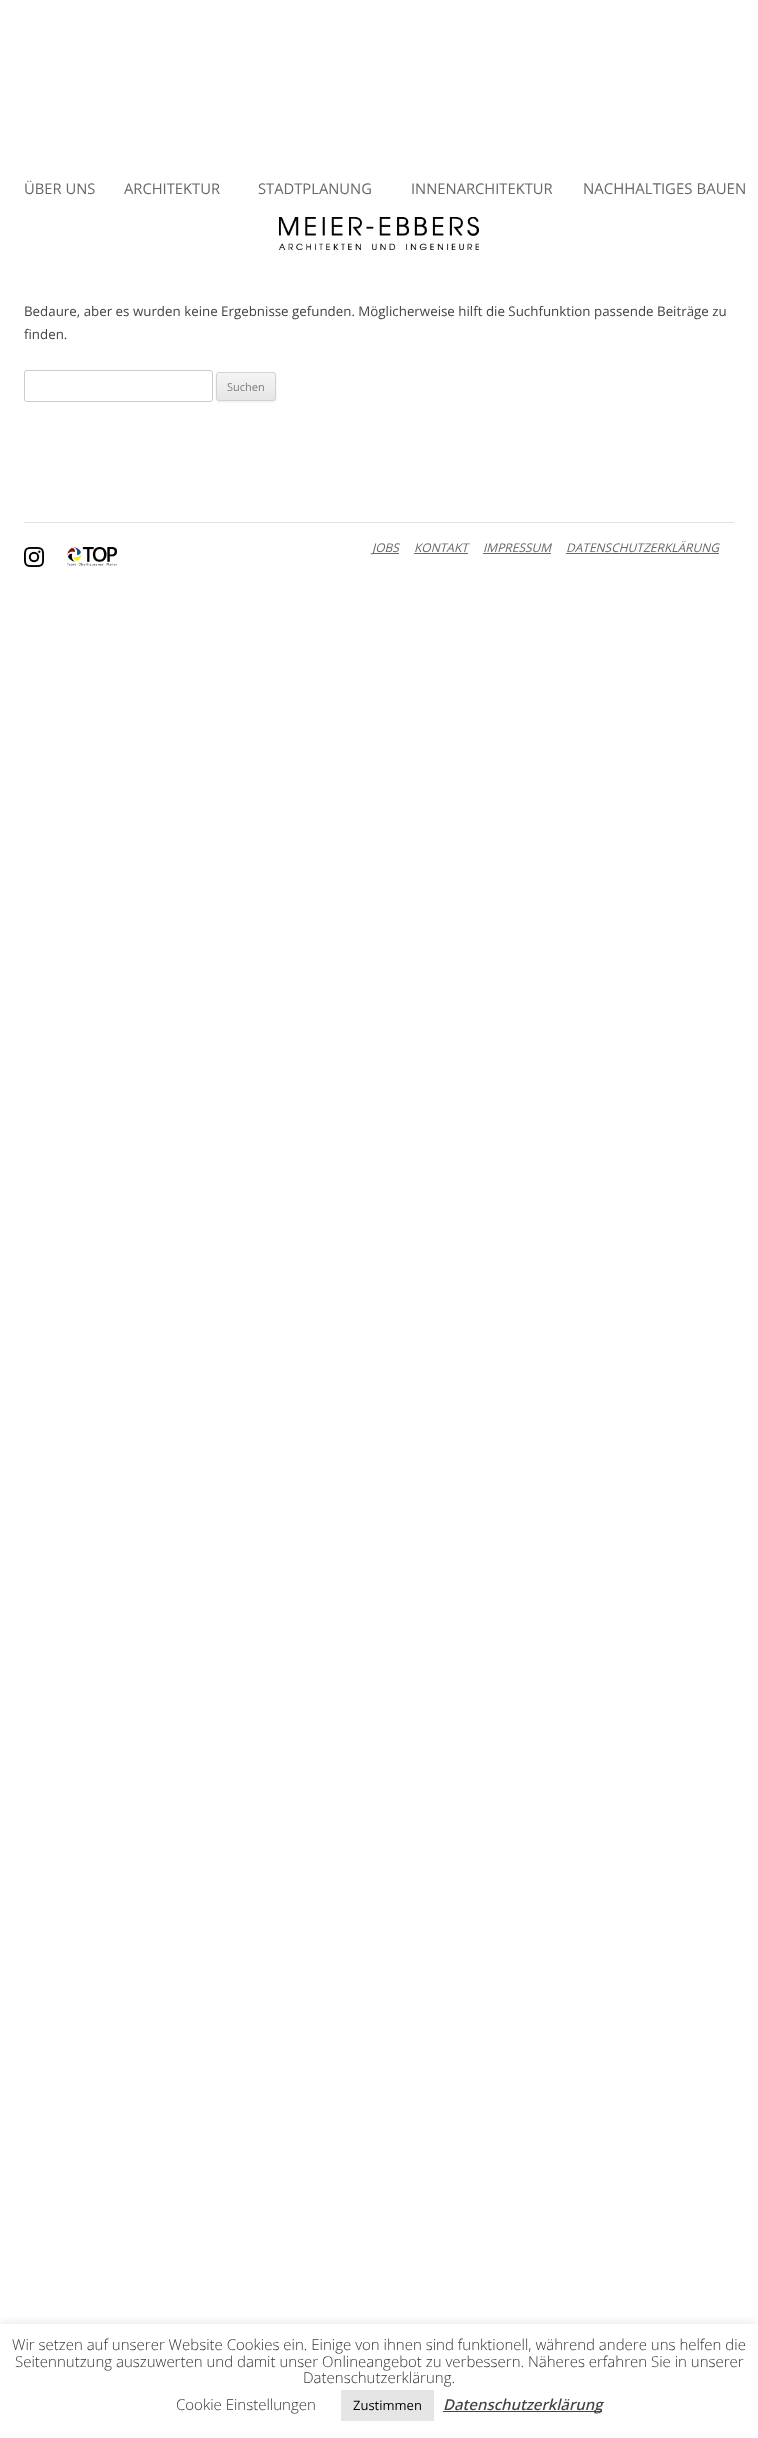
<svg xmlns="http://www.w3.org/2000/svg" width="758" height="2438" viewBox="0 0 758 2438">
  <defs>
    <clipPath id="clip1"><rect x="216" y="372" width="60" height="29" rx="3"/></clipPath>
    <linearGradient id="g1" gradientUnits="userSpaceOnUse" x1="246" y1="373" x2="246" y2="400"><stop offset="0" stop-color="#f4f4f4"/><stop offset="1" stop-color="#e6e6e6"/></linearGradient>
    <clipPath id="clip2"><path d="M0 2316h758v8H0z"/></clipPath>
  </defs>
  <rect width="100%" height="100%" fill="#fff"/>
  <image x="279" y="217" width="200" height="33" href="img/1.png"/>
  <rect x="24.5" y="370.5" width="188" height="31" rx="2.5" fill="none" stroke="#ccc"/>
  <rect x="216" y="373" width="60" height="29" rx="3" fill="#4040401a" filter="blur(1px)"/>
  <g clip-path="url(#clip1)">
    <path d="M216 373h60v27H216z" fill="url(#g1)"/>
  </g>
  <rect x="216.5" y="372.5" width="59" height="28" rx="2.5" fill="none" stroke="#d2d2d2"/>
  <path d="M24 522h710v1H24z" fill="#e1e1e1"/>
  <image x="24" y="547" width="20" height="20" href="img/2.png"/>
  <image x="67" y="547" width="50" height="19" href="img/3.png"/>
  <path d="M372 553h27v1H372z" fill="#686868"/>
  <path d="M414 553h54v1H414z" fill="#686868"/>
  <path d="M483 553h68v1H483z" fill="#686868"/>
  <path d="M566 553h153v1H566z" fill="#686868"/>
  <g clip-path="url(#clip2)">
    <path d="M0 2323h758v114H0z" fill="#acabab4d" filter="blur(5px)"/>
  </g>
  <path d="M341 2390h93v31H341z" fill="#e5e5e5"/>
  <path d="M443 2411h159v1H443z" fill="#444"/>
  <g font-family="Open Sans" font-size="14.75" fill="#686868">
    <text x="24" y="194">ÜBER UNS</text>
    <text x="124" y="194">ARCHITEKTUR</text>
    <text x="258" y="194">STADTPLANUNG</text>
    <text x="411" y="194">INNENARCHITEKTUR</text>
  </g>
  <text x="583" y="194" font-family="Open Sans" font-size="15" fill="#686868">NACHHALTIGES BAUEN</text>
  <g font-family="Open Sans" font-size="13.33" fill="#444">
    <text x="24" y="316">Bedaure, aber es wurden keine Ergebnisse gefunden. Möglicherweise hilft die Suchfunktion passende Beiträge zu</text>
    <text x="24" y="339">finden.</text>
  </g>
  <text x="227" y="391" font-family="Open Sans" font-size="11" fill="#7c7c7c">Suchen</text>
  <g font-family="Open Sans" font-size="12" font-style="italic" fill="#686868">
    <text x="372" y="552">JOBS</text>
    <text x="414" y="552">KONTAKT</text>
    <text x="483" y="552">IMPRESSUM</text>
    <text x="566" y="552">DATENSCHUTZERKLÄRUNG</text>
  </g>
  <g font-family="Open Sans" font-size="15" font-weight="300" fill="#333">
    <text x="12" y="2350">Wir setzen auf unserer Website Cookies ein. Einige von ihnen sind funktionell, während andere uns helfen die</text>
    <text x="15" y="2367">Seitennutzung auszuwerten und damit unser Onlineangebot zu verbessern. Näheres erfahren Sie in unserer</text>
    <text x="303" y="2383">Datenschutzerklärung.</text>
    <text x="176" y="2410">Cookie Einstellungen</text>
  </g>
  <text x="353" y="2410" font-family="Open Sans" font-size="13" fill="#000">Zustimmen</text>
  <text x="443" y="2410" font-family="Open Sans" font-size="15" font-weight="500" font-style="italic" fill="#444">Datenschutzerklärung</text>
</svg>
